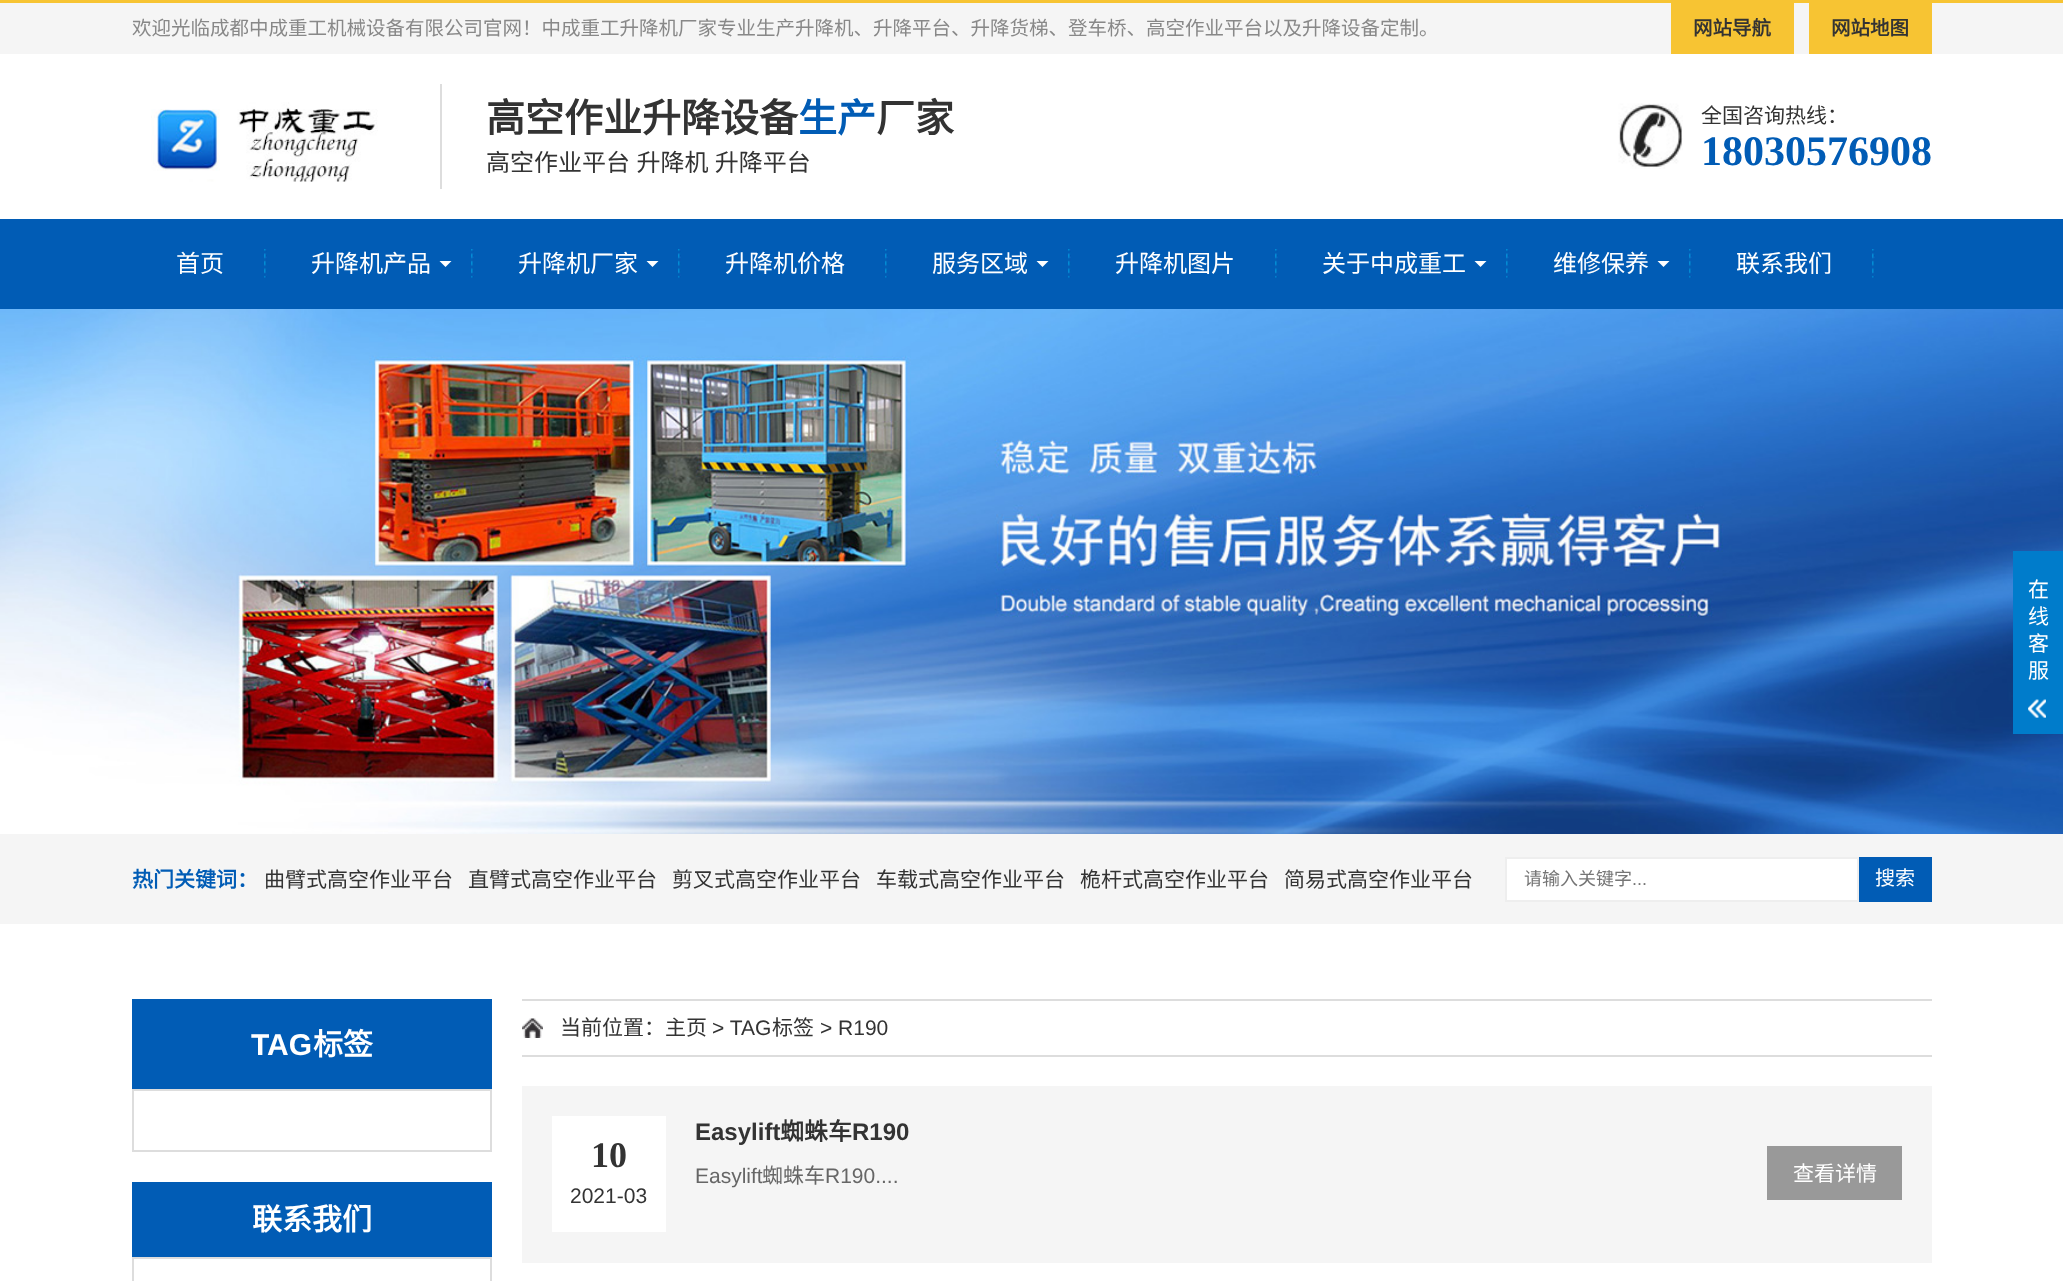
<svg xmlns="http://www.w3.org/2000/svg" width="2063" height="1281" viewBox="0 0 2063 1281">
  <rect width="100%" height="100%" fill="#fff"/>
  <path d="M0 3h2063v51H0z" fill="#f5f5f5"/>
  <path d="M0 0h2063v3H0z" fill="#f7c433"/>
  <path d="M1671 3h123v51H1671z" fill="#f7c433"/>
  <path d="M1809 3h123v51H1809z" fill="#f7c433"/>
  <image x="151" y="102" width="227" height="80" href="img/1.png"/>
  <path d="M440 84h2v105H440z" fill="#ddd"/>
  <image x="1618" y="103" width="65" height="66" href="img/2.png"/>
  <path d="M0 219h2063v90H0z" fill="#015cb5"/>
  <image x="264" y="249" width="3" height="29" href="img/3.png"/>
  <image x="471" y="249" width="3" height="29" href="img/3.png"/>
  <path d="M439.5 261H451.5L445.5 267Z" fill="#fff"/>
  <image x="678" y="249" width="3" height="29" href="img/4.png"/>
  <path d="M646.5 261H658.5L652.5 267Z" fill="#fff"/>
  <image x="885" y="249" width="3" height="29" href="img/4.png"/>
  <image x="1068" y="249" width="3" height="29" href="img/3.png"/>
  <path d="M1036.5 261H1048.5L1042.5 267Z" fill="#fff"/>
  <image x="1275" y="249" width="3" height="29" href="img/3.png"/>
  <image x="1506" y="249" width="3" height="29" href="img/3.png"/>
  <path d="M1474.5 261H1486.5L1480.5 267Z" fill="#fff"/>
  <image x="1689" y="249" width="3" height="29" href="img/4.png"/>
  <path d="M1657.5 261H1669.5L1663.5 267Z" fill="#fff"/>
  <image x="1872" y="249" width="3" height="29" href="img/3.png"/>
  <image x="0" y="309" width="2063" height="525" href="img/5.png"/>
  <path d="M2013 551h50v183H2013z" fill="#007ccb"/>
  <image x="2028" y="699" width="18" height="19" href="img/6.png"/>
  <path d="M0 834h2063v90H0z" fill="#f5f5f5"/>
  <path d="M1506 858h352v43H1506z" fill="#fff" stroke="#eee" stroke-width="2"/>
  <path d="M1859 857h73v45H1859z" fill="#015cb5"/>
  <path d="M132 999h360v90H132z" fill="#015cb5"/>
  <path d="M133 1090h358v61H133z" fill="none" stroke="#ddd" stroke-width="2"/>
  <path d="M132 1182h360v75H132z" fill="#015cb5"/>
  <path d="M133 1258h358v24H133z" fill="none" stroke="#ddd" stroke-width="2"/>
  <image x="522" y="1018" width="21" height="20" href="img/7.png"/>
  <path d="M522 999h1410v2H522z" fill="#ddd"/>
  <path d="M522 1055h1410v2H522z" fill="#ddd"/>
  <path d="M522 1086h1410v177H522z" fill="#f5f5f5"/>
  <path d="M552 1116h114v116H552z" fill="#fff"/>
  <path d="M1767 1146h135v54H1767z" fill="#999"/>
  <text x="132" y="35" font-family="Noto Sans CJK SC" font-size="19.5" fill="#888">欢迎光临成都中成重工机械设备有限公司官网！中成重工升降机厂家专业生产升降机、升降平台、升降货梯、登车桥、高空作业平台以及升降设备定制。</text>
  <g font-family="Noto Sans CJK SC" font-size="19.5" font-weight="bold" fill="#333">
    <text x="1693" y="35">网站导航</text>
    <text x="1831" y="35">网站地图</text>
  </g>
  <text x="486" y="132" font-family="Noto Sans CJK SC" font-size="39" font-weight="bold" fill="#333">高空作业升降设备</text>
  <text x="798" y="132" font-family="Noto Sans CJK SC" font-size="39" font-weight="bold" fill="#015cb5">生产</text>
  <text x="876" y="132" font-family="Noto Sans CJK SC" font-size="39" font-weight="bold" fill="#333">厂家</text>
  <text x="486" y="171" word-spacing="1" font-family="Noto Sans CJK SC" font-size="24" fill="#333">高空作业平台 升降机 升降平台</text>
  <text x="1701" y="123" font-family="Noto Sans CJK SC" font-size="21" fill="#333">全国咨询热线：</text>
  <text x="1701" y="165" font-family="Liberation Serif" font-size="42" font-weight="bold" fill="#015cb5">18030576908</text>
  <g font-family="Noto Sans CJK SC" font-size="24" fill="#fff">
    <text x="176" y="272">首页</text>
    <text x="311" y="272">升降机产品</text>
    <text x="518" y="272">升降机厂家</text>
    <text x="725" y="272">升降机价格</text>
    <text x="932" y="272">服务区域</text>
    <text x="1115" y="272">升降机图片</text>
    <text x="1322" y="272">关于中成重工</text>
    <text x="1553" y="272">维修保养</text>
    <text x="1736" y="272">联系我们</text>
  </g>
  <g font-family="Noto Sans CJK SC" font-size="21" fill="#fff">
    <text x="2028" y="597">在</text>
    <text x="2028" y="624">线</text>
    <text x="2028" y="651">客</text>
    <text x="2028" y="678">服</text>
  </g>
  <text x="132" y="887" font-family="Noto Sans CJK SC" font-size="21" font-weight="bold" fill="#015cb5">热门关键词：</text>
  <g font-family="Noto Sans CJK SC" font-size="21" fill="#333">
    <text x="264" y="887">曲臂式高空作业平台</text>
    <text x="468" y="887">直臂式高空作业平台</text>
    <text x="672" y="887">剪叉式高空作业平台</text>
    <text x="876" y="887">车载式高空作业平台</text>
    <text x="1080" y="887">桅杆式高空作业平台</text>
    <text x="1284" y="887">简易式高空作业平台</text>
  </g>
  <text x="1524" y="885" font-family="Noto Sans CJK SC" font-size="18" fill="#757575">请输入关键字</text>
  <text x="1632" y="885" font-family="Liberation Sans" font-size="18" fill="#757575">...</text>
  <text x="1875" y="885" font-family="Noto Sans CJK SC" font-size="20" fill="#fff">搜索</text>
  <text x="251" y="1055" font-family="Liberation Sans" font-size="30" font-weight="bold" fill="#fff">TAG</text>
  <g font-family="Noto Sans CJK SC" font-size="30" font-weight="bold" fill="#fff">
    <text x="313" y="1055">标签</text>
    <text x="252" y="1230">联系我们</text>
  </g>
  <text x="560" y="1035" font-family="Noto Sans CJK SC" font-size="21" fill="#333">当前位置：主页</text>
  <text x="712" y="1035" font-family="Liberation Sans" font-size="21" fill="#333">&gt; TAG</text>
  <text x="772" y="1035" font-family="Noto Sans CJK SC" font-size="21" fill="#333">标签</text>
  <text x="820" y="1035" font-family="Liberation Sans" font-size="21" fill="#333">&gt; R190</text>
  <text x="591" y="1167" font-family="Liberation Serif" font-size="36" font-weight="bold" fill="#333">10</text>
  <text x="570" y="1203" font-family="Liberation Sans" font-size="21" fill="#333">2021-03</text>
  <text x="695" y="1140" font-family="Liberation Sans" font-size="24" font-weight="bold" fill="#333">Easylift</text>
  <text x="780" y="1140" font-family="Noto Sans CJK SC" font-size="24" font-weight="bold" fill="#333">蜘蛛车</text>
  <text x="852" y="1140" font-family="Liberation Sans" font-size="24" font-weight="bold" fill="#333">R190</text>
  <text x="695" y="1183" font-family="Liberation Sans" font-size="21" fill="#666">Easylift</text>
  <text x="762" y="1183" font-family="Noto Sans CJK SC" font-size="21" fill="#666">蜘蛛车</text>
  <text x="825" y="1183" font-family="Liberation Sans" font-size="21" fill="#666">R190....</text>
  <text x="1793" y="1181" font-family="Noto Sans CJK SC" font-size="21" fill="#fff">查看详情</text>
</svg>
